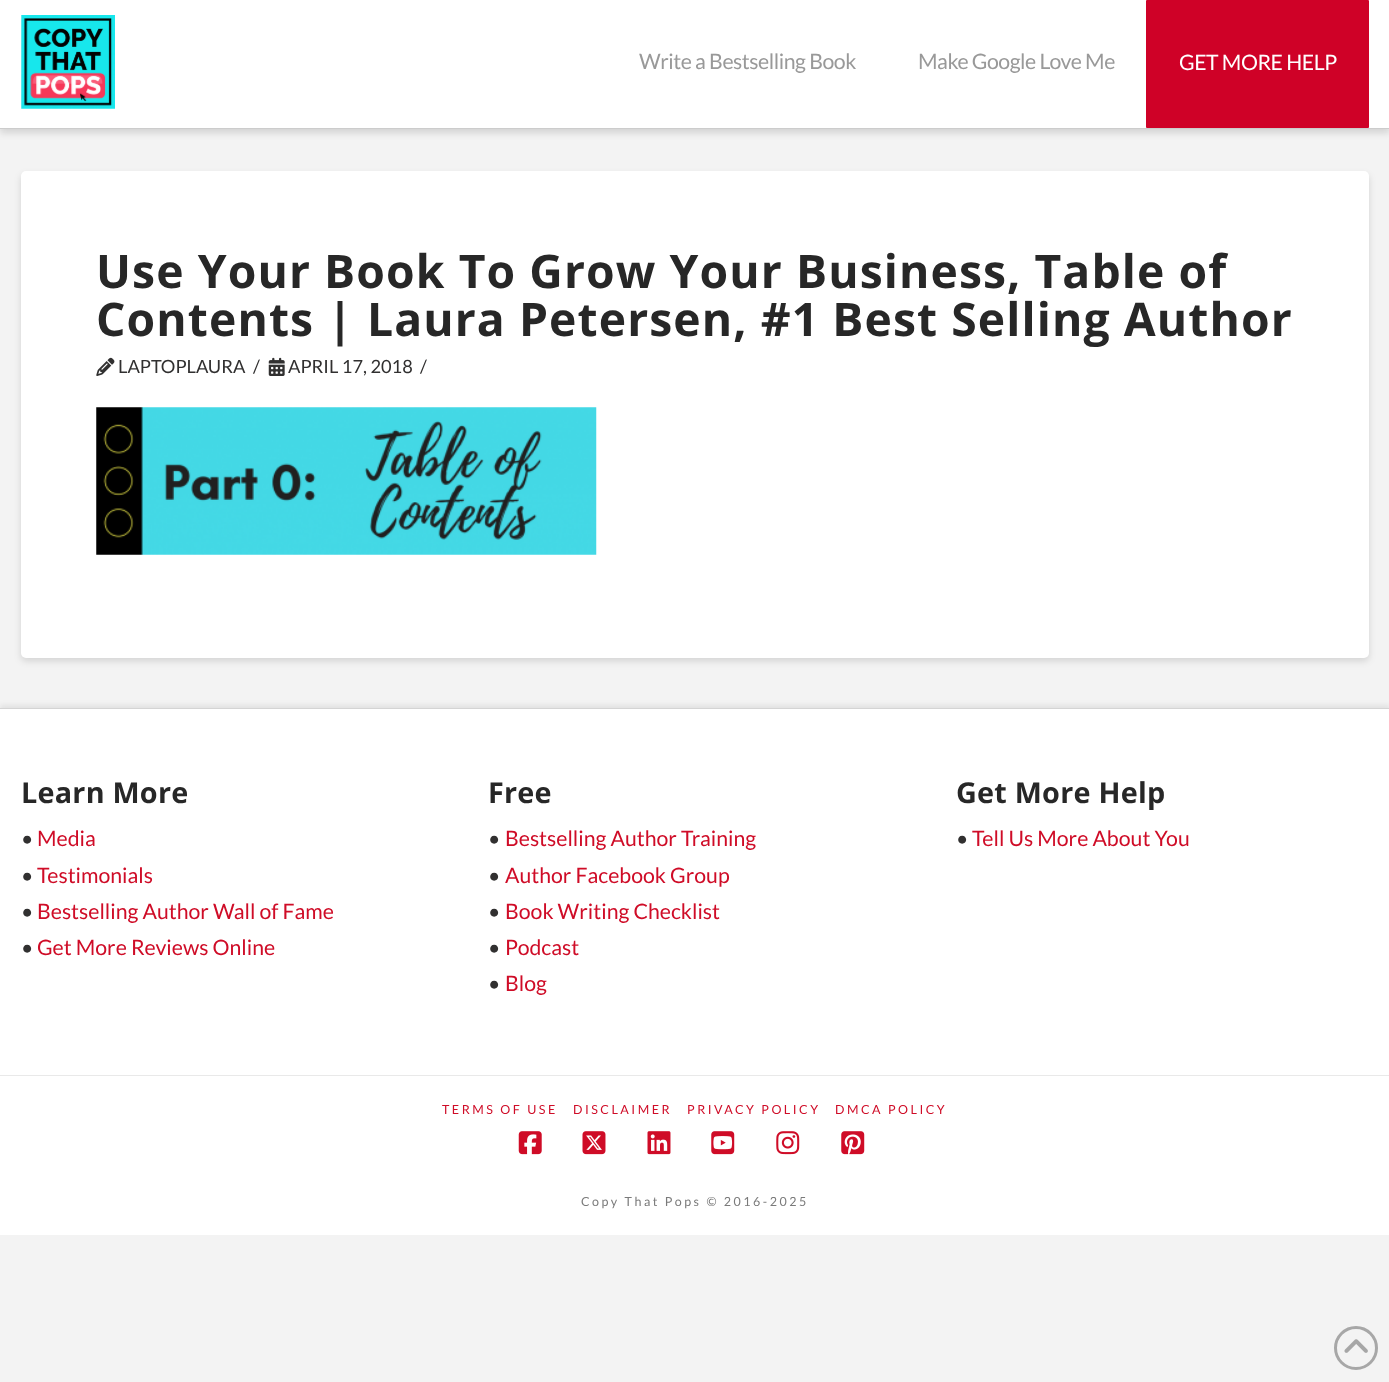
<svg xmlns="http://www.w3.org/2000/svg" width="1389" height="1382" viewBox="0 0 1389 1382">
  <rect width="100%" height="100%" fill="#f3f3f3"/>
  <path d="M0 4h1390v129H0z" fill="#00000021" filter="blur(3.5px)"/>
  <path d="M0 0h1389v128H0z" fill="#fff"/>
  <path d="M0 128h1389v1H0z" fill="#ccc"/>
  <image x="21" y="15" width="94" height="94" href="img/1.png"/>
  <rect x="1146" width="223" height="128" rx="1" fill="#cf0127"/>
  <rect x="21" y="175" width="1348" height="486" rx="5" fill="#00000021" filter="blur(3.5px)"/>
  <rect x="21" y="171" width="1348" height="487" rx="5" fill="#fff"/>
  <image x="96" y="357" width="19" height="19" href="img/2.png"/>
  <image x="268" y="357" width="17" height="19" href="img/3.png"/>
  <image x="96" y="407" width="501" height="148" href="img/4.png"/>
  <path d="M0 705h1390v368H0z" fill="#00000012" filter="blur(2.5px)"/>
  <path d="M0 709h1389v366H0z" fill="#fff"/>
  <path d="M0 708h1389v1H0z" fill="#d4d4d4"/>
  <path d="M0 1076h1389v159H0z" fill="#fff"/>
  <path d="M0 1075h1389v1H0z" fill="#e9e9e9"/>
  <image x="518" y="1131" width="24" height="24" href="img/5.png"/>
  <image x="582" y="1131" width="24" height="24" href="img/6.png"/>
  <image x="647" y="1131" width="24" height="24" href="img/7.png"/>
  <image x="711" y="1131" width="24" height="24" href="img/8.png"/>
  <image x="776" y="1131" width="24" height="24" href="img/9.png"/>
  <image x="841" y="1131" width="24" height="24" href="img/10.png"/>
  <circle cx="1356" cy="1348" r="20.5" fill="none" stroke="#a7a7a7" stroke-width="3"/>
  <image x="1344" y="1339" width="24" height="14" href="img/11.png"/>
  <g font-family="Lato" font-size="21.25" letter-spacing="-0.45" fill="#999">
    <text x="639" y="69">Write a Bestselling Book</text>
    <text x="918" y="69">Make Google Love Me</text>
  </g>
  <text x="1179" y="70" font-family="Lato" font-size="21.25" letter-spacing="-0.45" fill="#fff">GET MORE HELP</text>
  <g font-family="Open Sans" font-size="46.25" font-weight="bold" letter-spacing="1.1" fill="#272727">
    <text x="96" y="288">Use Your Book To Grow Your Business, Table of</text>
    <text x="96" y="336">Contents | Laura Petersen, #1 Best Selling Author</text>
  </g>
  <g font-family="Lato" font-size="18.25" fill="#313030">
    <text x="118" y="373">LAPTOPLAURA</text>
    <text x="253" y="373">/</text>
    <text x="288" y="373">APRIL 17, 2018</text>
    <text x="420" y="373">/</text>
  </g>
  <text x="21" y="803" font-family="Open Sans" font-size="28.75" font-weight="bold" letter-spacing="0.25" fill="#272727">Learn More</text>
  <text x="21" y="846" font-family="Lato" font-size="21.25" fill="#313030">•</text>
  <text x="37" y="846" font-family="Lato" font-size="21.25" fill="#cf0c27">Media</text>
  <text x="21" y="883" font-family="Lato" font-size="21.25" fill="#313030">•</text>
  <text x="37" y="883" font-family="Lato" font-size="21.25" fill="#cf0c27">Testimonials</text>
  <text x="21" y="919" font-family="Lato" font-size="21.25" fill="#313030">•</text>
  <text x="37" y="919" font-family="Lato" font-size="21.25" fill="#cf0c27">Bestselling Author Wall of Fame</text>
  <text x="21" y="955" font-family="Lato" font-size="21.25" fill="#313030">•</text>
  <text x="37" y="955" font-family="Lato" font-size="21.25" fill="#cf0c27">Get More Reviews Online</text>
  <text x="488" y="803" font-family="Open Sans" font-size="28.75" font-weight="bold" letter-spacing="0.25" fill="#272727">Free</text>
  <text x="488" y="846" font-family="Lato" font-size="21.25" fill="#313030">•</text>
  <text x="505" y="846" font-family="Lato" font-size="21.25" fill="#cf0c27">Bestselling Author Training</text>
  <text x="488" y="883" font-family="Lato" font-size="21.25" fill="#313030">•</text>
  <text x="505" y="883" font-family="Lato" font-size="21.25" fill="#cf0c27">Author Facebook Group</text>
  <text x="488" y="919" font-family="Lato" font-size="21.25" fill="#313030">•</text>
  <text x="505" y="919" font-family="Lato" font-size="21.25" fill="#cf0c27">Book Writing Checklist</text>
  <text x="488" y="955" font-family="Lato" font-size="21.25" fill="#313030">•</text>
  <text x="505" y="955" font-family="Lato" font-size="21.25" fill="#cf0c27">Podcast</text>
  <text x="488" y="991" font-family="Lato" font-size="21.25" fill="#313030">•</text>
  <text x="505" y="991" font-family="Lato" font-size="21.25" fill="#cf0c27">Blog</text>
  <text x="956" y="803" font-family="Open Sans" font-size="28.75" font-weight="bold" letter-spacing="0.25" fill="#272727">Get More Help</text>
  <text x="956" y="846" font-family="Lato" font-size="21.25" fill="#313030">•</text>
  <text x="972" y="846" font-family="Lato" font-size="21.25" fill="#cf0c27">Tell Us More About You</text>
  <g font-family="Lato" font-size="12.5" letter-spacing="2.5" fill="#cf0c27">
    <text x="442" y="1114">TERMS OF USE</text>
    <text x="573" y="1114">DISCLAIMER</text>
    <text x="687" y="1114">PRIVACY POLICY</text>
    <text x="835" y="1114">DMCA POLICY</text>
  </g>
  <text x="581" y="1206" font-family="Lato" font-size="12.5" letter-spacing="2.5" fill="#7a7a7a">Copy That Pops © 2016-2025</text>
</svg>
